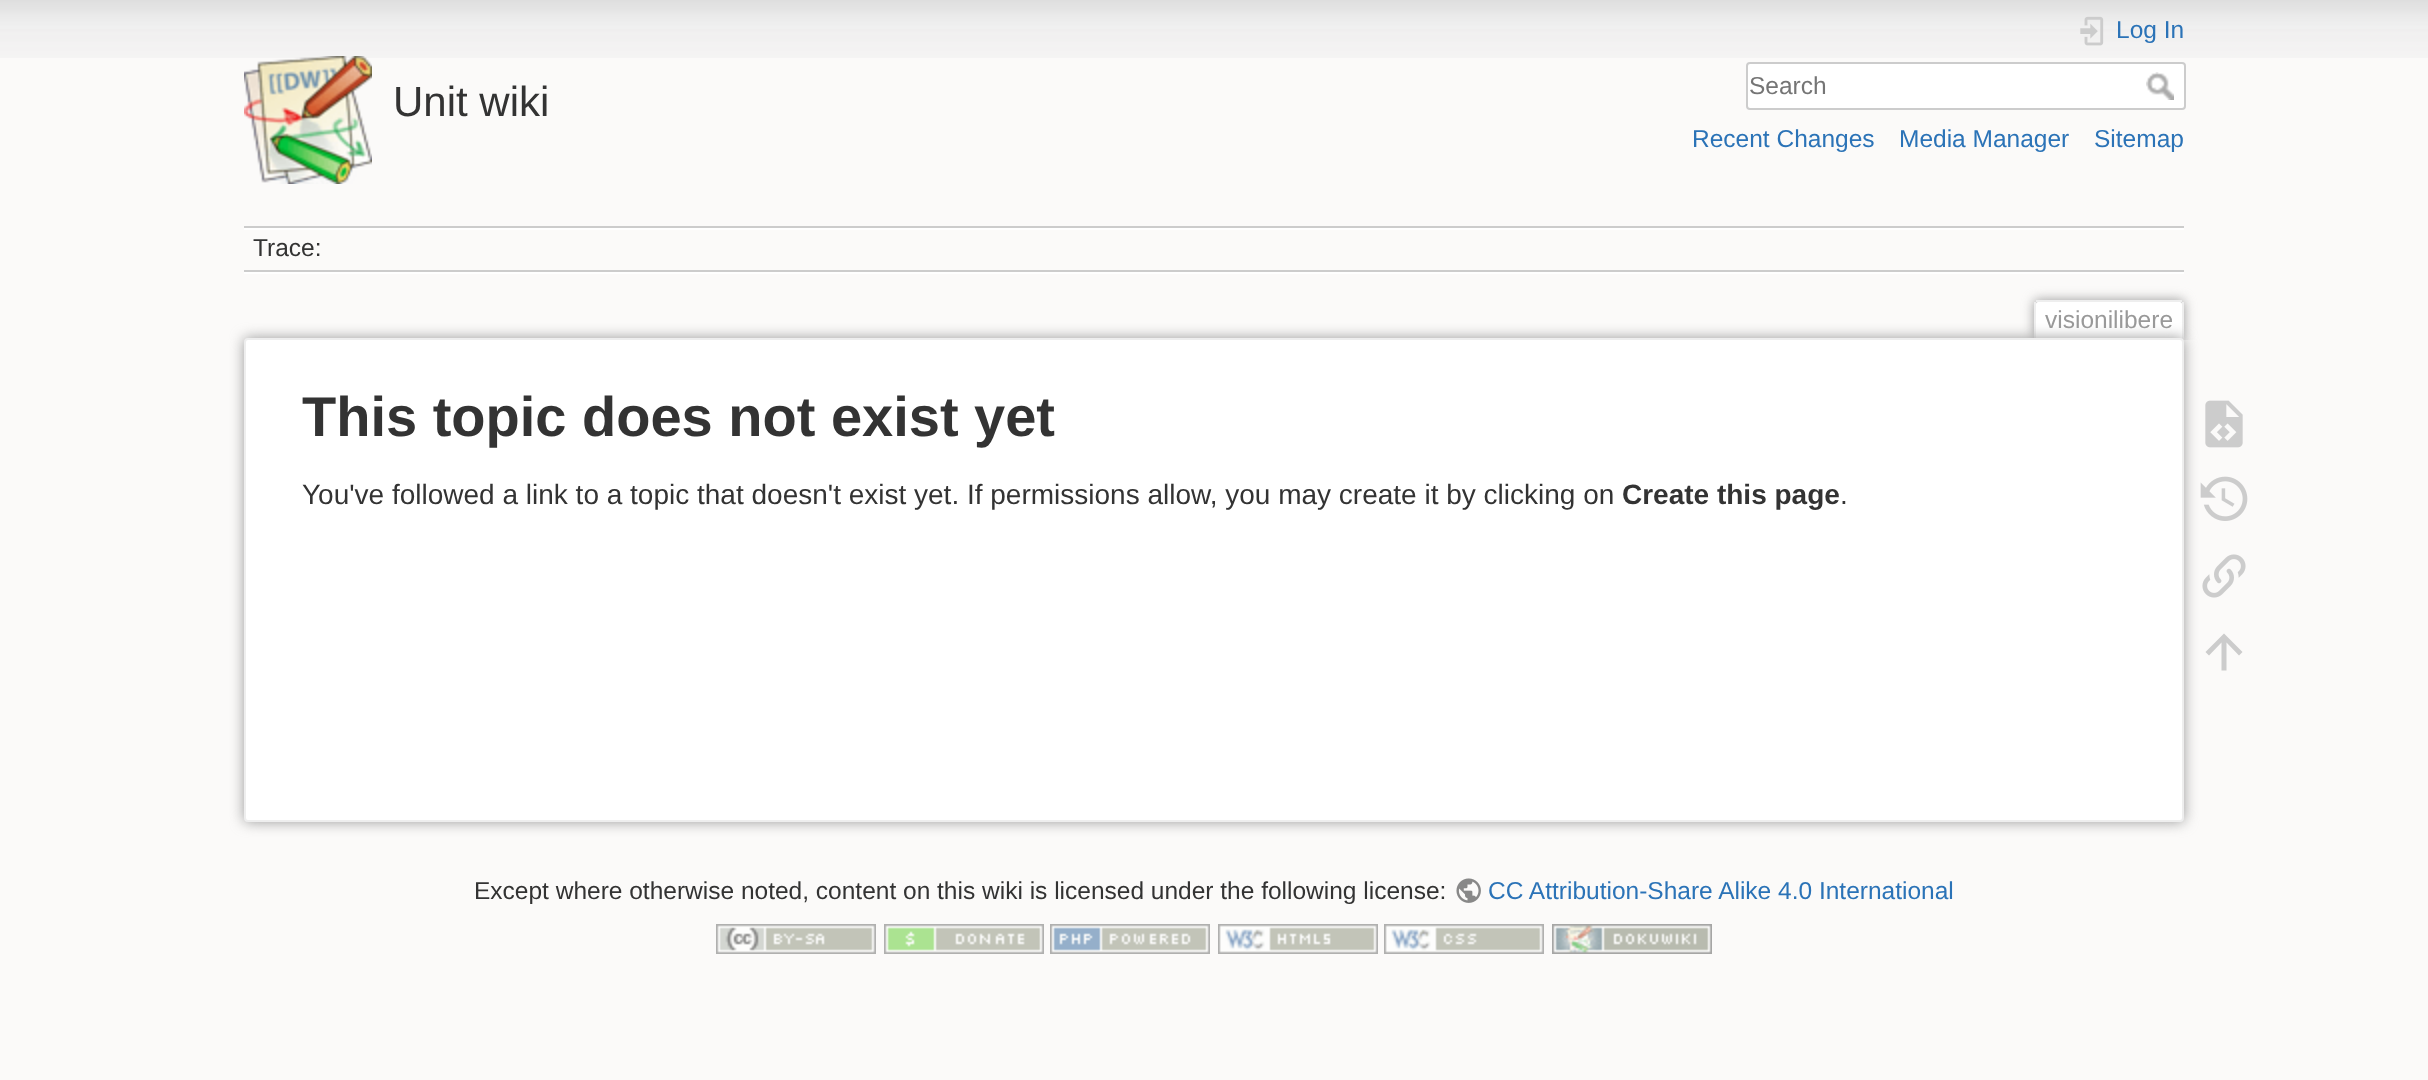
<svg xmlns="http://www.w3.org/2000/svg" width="2428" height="1080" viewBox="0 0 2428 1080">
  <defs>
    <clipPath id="clip1"><path d="M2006 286h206v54H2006z"/></clipPath>
  </defs>
  <rect width="100%" height="100%" fill="#fbfaf9"/>
  <image x="0" y="0" width="2428" height="58" href="img/1.png"/>
  <image x="244" y="56" width="128" height="128" href="img/2.png"/>
  <image x="2080" y="16" width="24" height="30" href="img/3.png"/>
  <rect x="1747" y="63" width="438" height="46" rx="3" fill="#fff" stroke="#ccc" stroke-width="2"/>
  <image x="2146" y="72" width="28" height="28" href="img/4.png"/>
  <path d="M244 226h1940v2H244z" fill="#ccc"/>
  <path d="M244 272h1940v2H244z" fill="#fff"/>
  <path d="M244 228h1940v2H244z" fill="#fff"/>
  <path d="M244 270h1940v2H244z" fill="#ccc"/>
  <g clip-path="url(#clip1)">
    <rect x="2034" y="300" width="150" height="40" rx="4" fill="#999" filter="blur(6px)"/>
  </g>
  <path d="M2038 302H2180C2181 302 2182 303 2182 304V340H2036V304C2036 303 2037 302 2038 302Z" fill="#fff"/>
  <path d="M2036 300h146v2H2036z" fill="#eee"/>
  <path d="M2182 302h2v38H2182z" fill="#eee"/>
  <path d="M2034 302h2v38H2034z" fill="#eee"/>
  <rect x="244" y="338" width="1940" height="484" rx="4" fill="#999" filter="blur(7px)"/>
  <rect x="245" y="339" width="1938" height="482" rx="3" fill="#fff" stroke="#eee" stroke-width="2"/>
  <image x="2205" y="400" width="38" height="48" href="img/5.png"/>
  <image x="2200" y="476" width="48" height="45" href="img/6.png"/>
  <image x="2202" y="554" width="44" height="44" href="img/7.png"/>
  <path d="M2226.5 670.5H2221.5V642.5L2209 655.5L2205.5 652L2224 633.5L2242.5 652L2239 655.5L2226.5 642.5Z" fill="#ccc"/>
  <image x="1456" y="878" width="25" height="25" href="img/8.png"/>
  <image x="716" y="924" width="160" height="30" href="img/9.png"/>
  <image x="884" y="924" width="160" height="30" href="img/10.png"/>
  <image x="1050" y="924" width="160" height="30" href="img/11.png"/>
  <image x="1218" y="924" width="160" height="30" href="img/12.png"/>
  <image x="1384" y="924" width="160" height="30" href="img/13.png"/>
  <image x="1552" y="924" width="160" height="30" href="img/14.png"/>
  <text x="393" y="116" font-family="Liberation Sans" font-size="42" fill="#333">Unit wiki</text>
  <text x="2116" y="38" font-family="Liberation Sans" font-size="24.5" fill="#2b73b7">Log In</text>
  <text x="1749" y="94" font-family="Liberation Sans" font-size="24.5" fill="#757575">Search</text>
  <g font-family="Liberation Sans" font-size="24.5" fill="#2b73b7">
    <text x="1692" y="147">Recent Changes</text>
    <text x="1899" y="147">Media Manager</text>
    <text x="2094" y="147">Sitemap</text>
  </g>
  <text x="253" y="256" font-family="Liberation Sans" font-size="24.5" fill="#333">Trace:</text>
  <text x="2045" y="328" font-family="Liberation Sans" font-size="24.5" fill="#999">visionilibere</text>
  <text x="302" y="436" font-family="Liberation Sans" font-size="56" font-weight="bold" fill="#333">This topic does not exist yet</text>
  <text x="302" y="504" font-family="Liberation Sans" font-size="28" fill="#333">You've followed a link to a topic that doesn't exist yet. If permissions allow, you may create it by clicking on</text>
  <text x="1622" y="504" font-family="Liberation Sans" font-size="28" font-weight="bold" fill="#333">Create this page</text>
  <text x="1840" y="504" font-family="Liberation Sans" font-size="28" fill="#333">.</text>
  <text x="474" y="899" font-family="Liberation Sans" font-size="24.5" fill="#333">Except where otherwise noted, content on this wiki is licensed under the following license:</text>
  <text x="1488" y="899" font-family="Liberation Sans" font-size="24.5" fill="#2b73b7">CC Attribution-Share Alike 4.0 International</text>
</svg>
